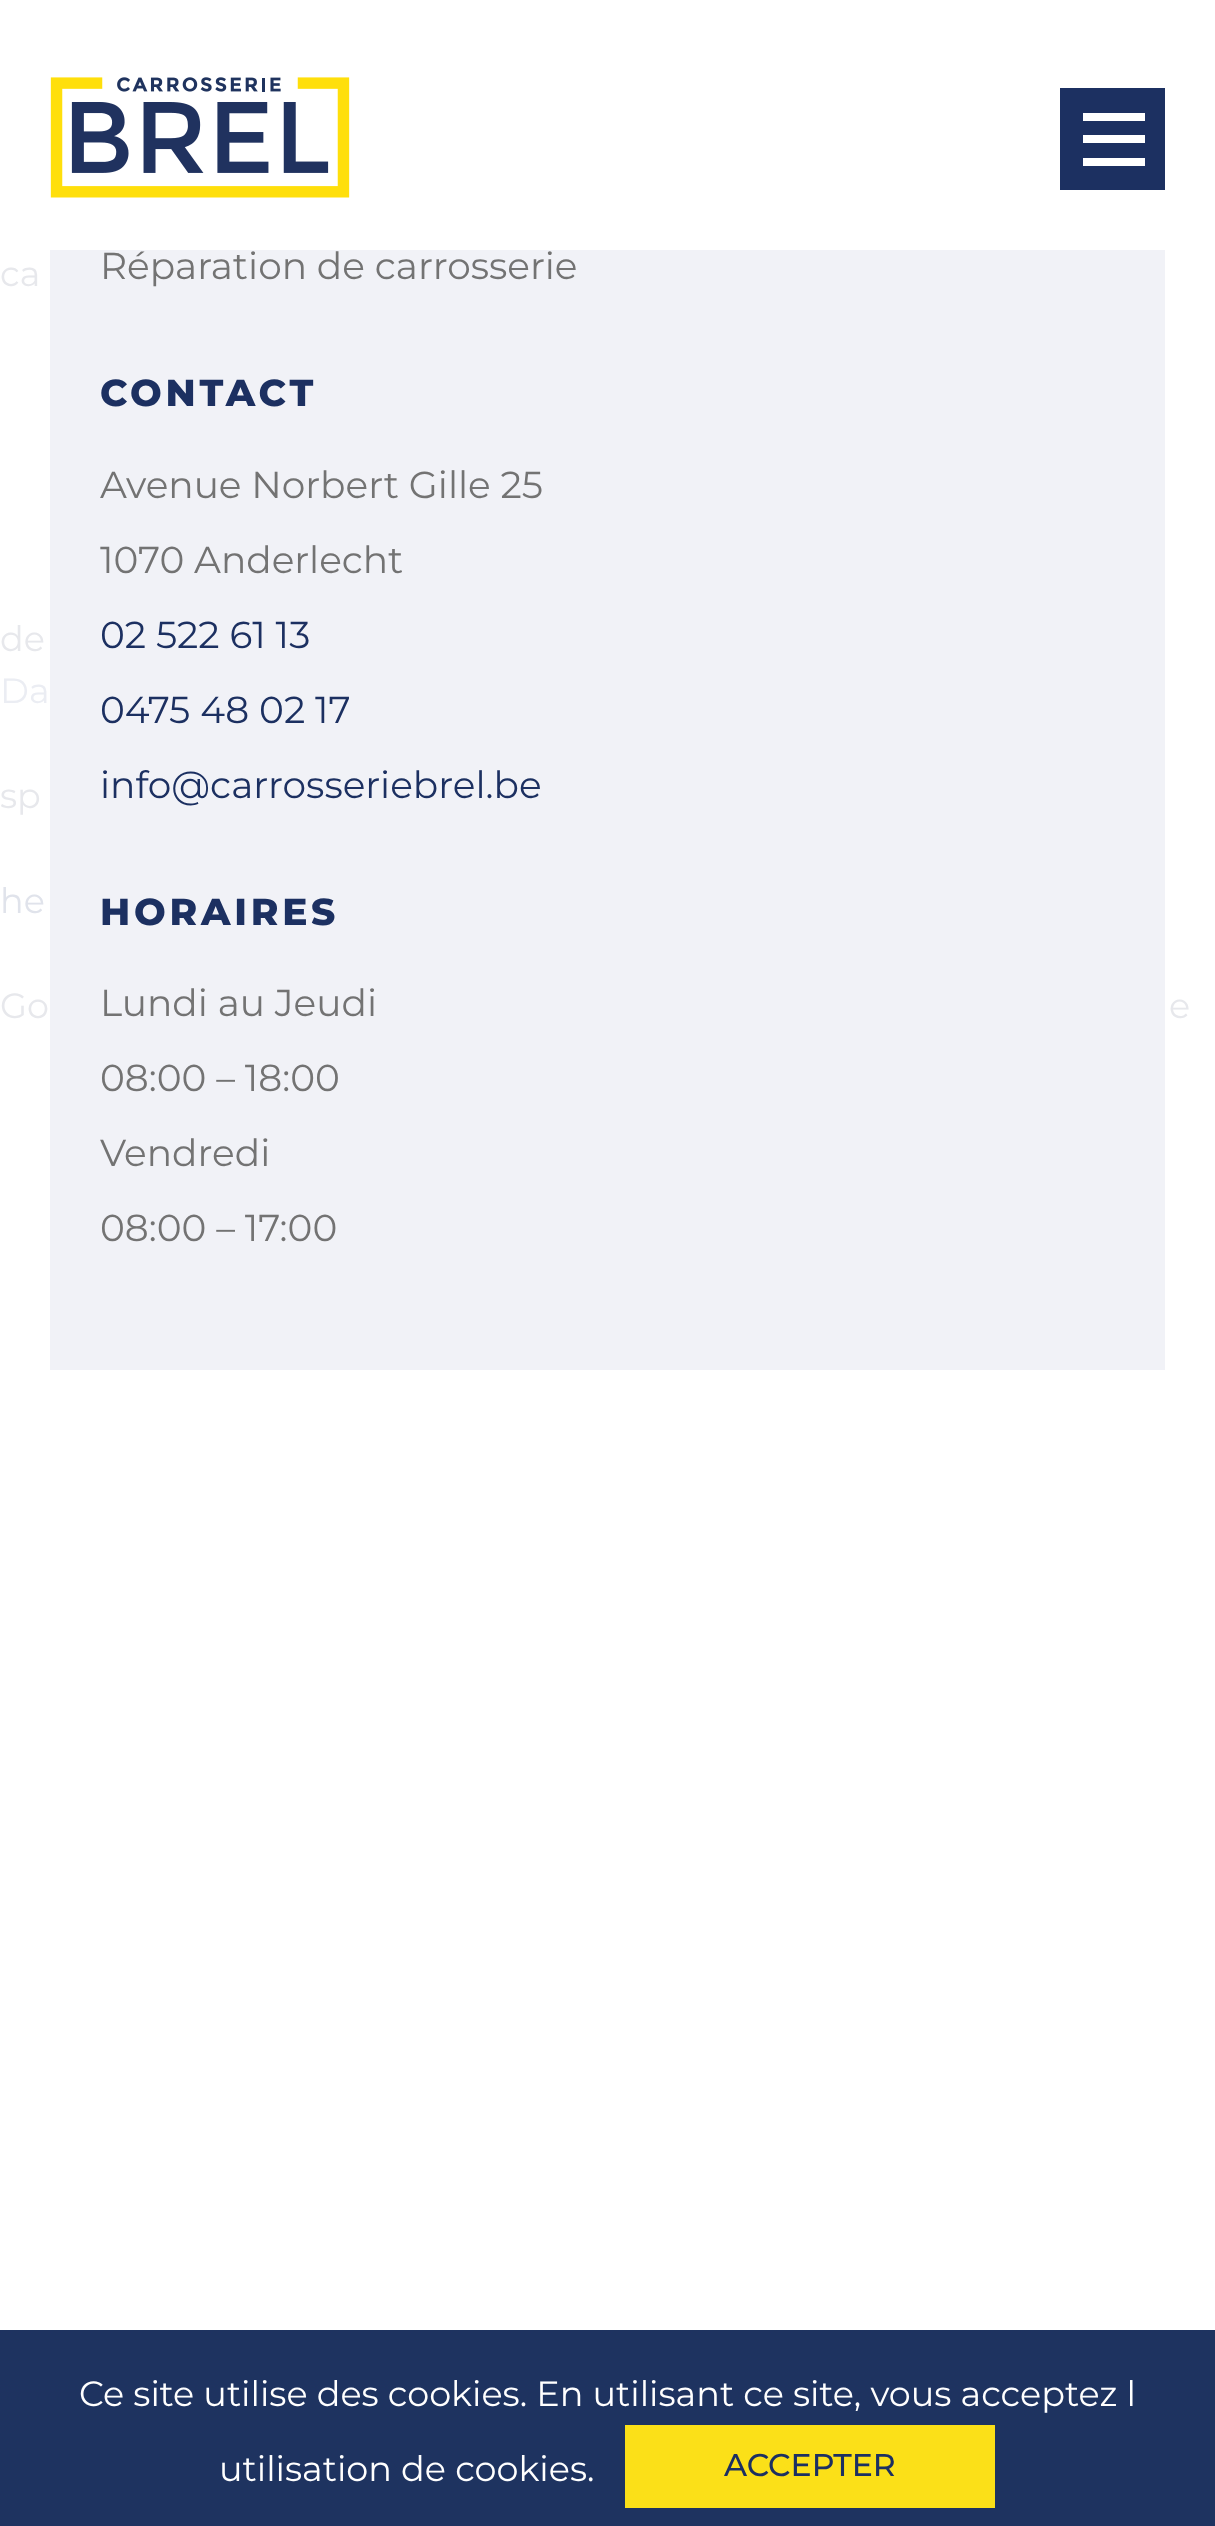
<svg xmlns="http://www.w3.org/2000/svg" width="1215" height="2526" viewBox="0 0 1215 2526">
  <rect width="100%" height="100%" fill="#fff"/>
  <image x="50" y="77" width="300" height="121" href="img/1.png"/>
  <path d="M1060 88h105v102H1060z" fill="#1c3061"/>
  <path d="M1083 135h62v8H1083z" fill="#fff"/>
  <path d="M1083 113h62v8H1083z" fill="#fff"/>
  <path d="M1083 158h62v8H1083z" fill="#fff"/>
  <path d="M50 250h1115v1120H50z" fill="#f1f2f7"/>
  <path d="M0 2330h1215v196H0z" fill="#1e3360"/>
  <path d="M625 2425h370v83H625z" fill="#fbe018"/>
  <text x="100" y="279" font-family="Montserrat" font-size="37.5" fill="#737373">Réparation de carrosserie</text>
  <text x="100" y="406" font-family="Montserrat" font-size="37.5" font-weight="800" letter-spacing="3.75" fill="#1c3061">CONTACT</text>
  <g font-family="Montserrat" font-size="37.5" fill="#737373">
    <text x="100" y="498">Avenue Norbert Gille 25</text>
    <text x="100" y="573">1070 Anderlecht</text>
  </g>
  <g font-family="Montserrat" font-size="37.5" fill="#1c3061">
    <text x="100" y="648">02 522 61 13</text>
    <text x="100" y="723">0475 48 02 17</text>
    <text x="100" y="798">info@carrosseriebrel.be</text>
  </g>
  <text x="100" y="925" font-family="Montserrat" font-size="37.5" font-weight="800" letter-spacing="3.75" fill="#1c3061">HORAIRES</text>
  <g font-family="Montserrat" font-size="37.5" fill="#737373">
    <text x="100" y="1016">Lundi au Jeudi</text>
    <text x="100" y="1091">08:00 – 18:00</text>
    <text x="100" y="1166">Vendredi</text>
    <text x="100" y="1241">08:00 – 17:00</text>
  </g>
  <g font-family="Montserrat" font-size="35" fill="#fff">
    <text x="79" y="2406">Ce site utilise des cookies. En utilisant ce site, vous acceptez l</text>
    <text x="219" y="2481">utilisation de cookies.</text>
  </g>
  <text x="724" y="2476" font-family="Montserrat" font-size="31.5" font-weight="500" fill="#1c3061">ACCEPTER</text>
  <g font-family="Montserrat" font-size="35" fill="#e7e8ec">
    <text x="0" y="286">ca</text>
    <text x="0" y="651">de</text>
  </g>
  <text x="0" y="703" font-family="Montserrat" font-size="35" fill="#ebedf3">Da</text>
  <text x="0" y="808" font-family="Montserrat" font-size="35" fill="#e7e8ec">sp</text>
  <text x="0" y="913" font-family="Montserrat" font-size="35" fill="#e0e3eb">he</text>
  <g font-family="Montserrat" font-size="35" fill="#e7e8ec">
    <text x="0" y="1018">Go</text>
    <text x="1169" y="1018">e</text>
  </g>
</svg>
